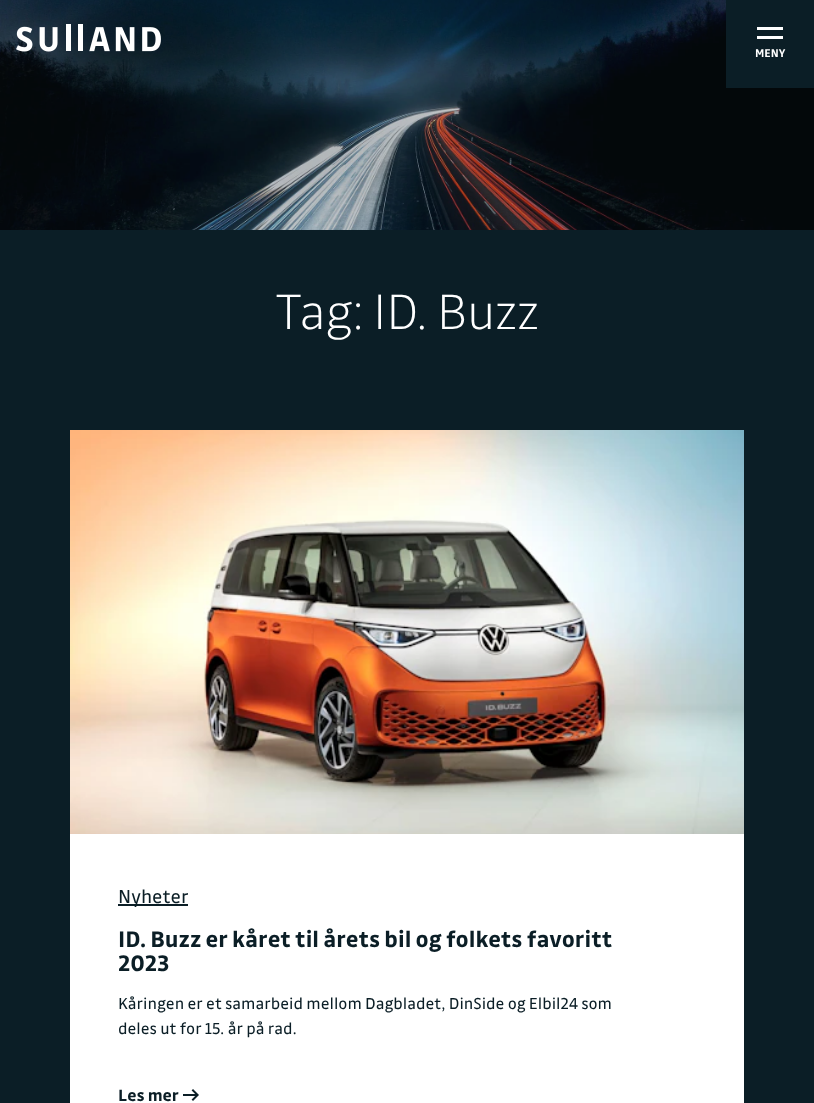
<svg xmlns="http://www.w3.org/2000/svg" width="814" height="1103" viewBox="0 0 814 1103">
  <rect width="100%" height="100%" fill="#0b1e26"/>
  <image x="0" y="0" width="814" height="230" href="img/1.png"/>
  <image x="16" y="24" width="145" height="28" href="img/2.png"/>
  <path d="M726 0h88v88H726z" fill="#0b1e26"/>
  <path d="M757 27h26v3H757z" fill="#fff"/>
  <path d="M757 36h26v3H757z" fill="#fff"/>
  <image x="70" y="430" width="674" height="404" href="img/3.png"/>
  <path d="M70 834h674v269H70z" fill="#fff"/>
  <path d="M118 904h70v2H118z" fill="#0b1e26"/>
  <image x="183" y="1089" width="16" height="12" href="img/4.png"/>
  <text x="755" y="57" font-family="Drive" font-size="12" font-weight="bold" fill="#fff">MENY</text>
  <text x="275" y="329" font-family="Drive" font-size="53" font-weight="200" letter-spacing="-0.75" fill="#fff">Tag: ID. Buzz</text>
  <text x="118" y="903" font-family="Drive" font-size="20" fill="#0b1e26">Nyheter</text>
  <g font-family="Drive" font-size="24" font-weight="bold" fill="#0b1e26">
    <text x="118" y="947">ID. Buzz er kåret til årets bil og folkets favoritt</text>
    <text x="118" y="971">2023</text>
  </g>
  <g font-family="Drive" font-size="17" fill="#0b1e26">
    <text x="118" y="1009">Kåringen er et samarbeid mellom Dagbladet, DinSide og Elbil24 som</text>
    <text x="118" y="1034">deles ut for 15. år på rad.</text>
  </g>
  <text x="118" y="1101" font-family="Drive" font-size="17.5" font-weight="bold" fill="#0b1e26">Les mer</text>
</svg>
